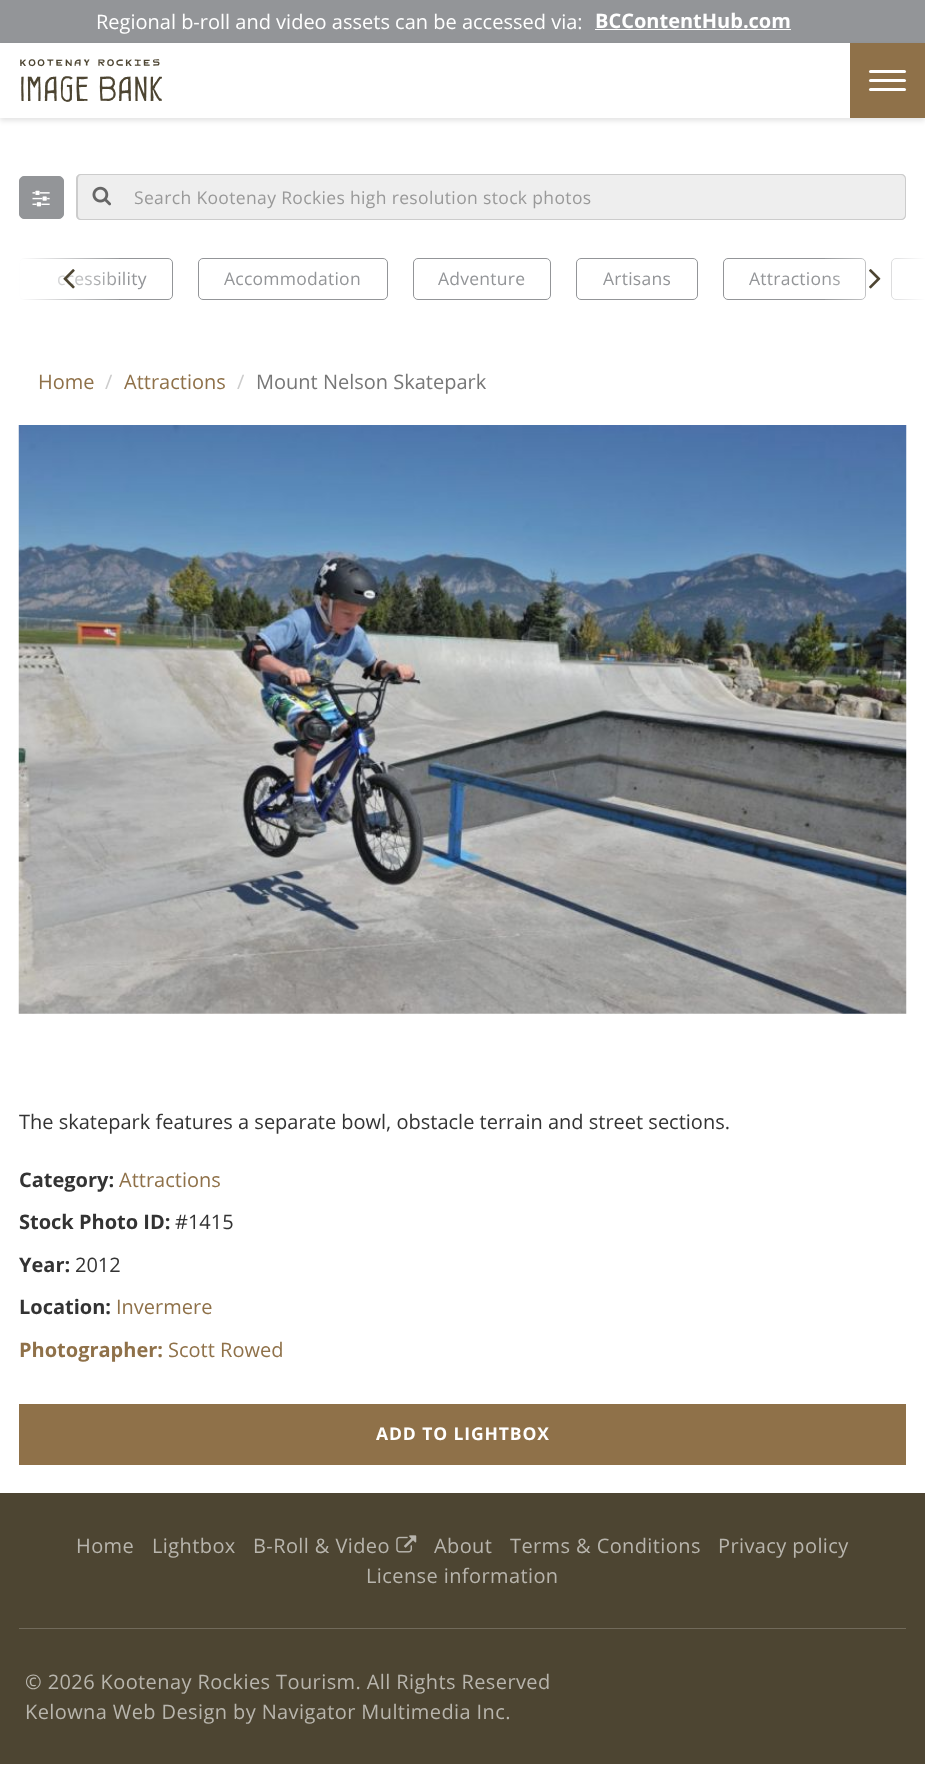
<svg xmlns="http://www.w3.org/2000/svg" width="925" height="1787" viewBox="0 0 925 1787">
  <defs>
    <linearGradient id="g1" gradientUnits="userSpaceOnUse" x1="119" y1="279" x2="19" y2="279"><stop offset="0" stop-color="#fff" stop-opacity="0.05"/><stop offset="1" stop-color="#fff"/></linearGradient>
    <linearGradient id="g2" gradientUnits="userSpaceOnUse" x1="825" y1="279" x2="925" y2="279"><stop offset="0" stop-color="#fff" stop-opacity="0.05"/><stop offset="1" stop-color="#fff"/></linearGradient>
  </defs>
  <rect width="100%" height="100%" fill="#fff"/>
  <path d="M0 0h925v43H0z" fill="#939598"/>
  <path d="M595 29h196v1H595z" fill="#fff"/>
  <path d="M0 46h925v75H0z" fill="#0000001a" filter="blur(2.5px)"/>
  <path d="M0 43h850v75H0z" fill="#fff"/>
  <path d="M850 43h75v75H850z" fill="#8f7149"/>
  <rect x="869" y="70" width="37" height="3" rx="1.5" fill="#fff"/>
  <rect x="869" y="79" width="37" height="3" rx="1.5" fill="#fff"/>
  <rect x="869" y="88" width="37" height="3" rx="1.5" fill="#fff"/>
  <rect x="19.5" y="176.5" width="44" height="42" rx="4.5" fill="#939598" stroke="#939598"/>
  <image x="32" y="190" width="18" height="17" href="img/1.png"/>
  <path d="M81 174H121V220H81C78 220 76 218 76 215V179C76 176 78 174 81 174Z" fill="#eee"/>
  <path d="M81 174H121V220H81C78 220 76 218 76 215V179C76 176 78 174 81 174ZM81 175H121V219H81C79 219 78 217 78 215V179C78 177 79 175 81 175Z" fill="#ccc" fill-rule="evenodd"/>
  <image x="92" y="186" width="19" height="20" href="img/2.png"/>
  <path d="M121 174H901C904 174 906 176 906 179V215C906 218 904 220 901 220H121Z" fill="#eee"/>
  <path d="M121 174H901C904 174 906 176 906 179V215C906 218 904 220 901 220H121ZM121 175H901C903 175 905 177 905 179V215C905 217 903 219 901 219H121Z" fill="#ccc" fill-rule="evenodd"/>
  <rect x="19.5" y="258.5" width="153" height="41" rx="4.5" fill="none" stroke="#939598"/>
  <rect x="198.5" y="258.5" width="189" height="41" rx="4.5" fill="none" stroke="#939598"/>
  <rect x="413.5" y="258.5" width="137" height="41" rx="4.5" fill="none" stroke="#939598"/>
  <rect x="576.5" y="258.5" width="121" height="41" rx="4.5" fill="none" stroke="#939598"/>
  <rect x="723.5" y="258.5" width="142" height="41" rx="4.5" fill="none" stroke="#939598"/>
  <rect x="891.5" y="258.5" width="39" height="41" rx="4.5" fill="none" stroke="#939598"/>
  <image x="18" y="425" width="889" height="589" href="img/5.png"/>
  <path d="M19 1404h887v61H19z" fill="#8f7149"/>
  <path d="M0 1493h925v271H0z" fill="#4d4532"/>
  <path d="M19 1628h887v1H19z" fill="#716a5b"/>
  <image x="396" y="1535" width="21" height="18" href="img/6.png"/>
  <text x="96" y="29" font-family="Open Sans" font-size="20" fill="#fff">Regional b-roll and video assets can be accessed via:</text>
  <text x="595" y="28" font-family="Open Sans" font-size="20" font-weight="bold" fill="#fff">BCContentHub.com</text>
  <text x="19" y="70" font-family="'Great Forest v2'" font-size="15.6" letter-spacing="0.6" fill="#4d4532">Kootenay Rockies</text>
  <text x="19" y="101" font-family="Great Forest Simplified" font-size="23.75" font-weight="600" fill="#4d4532">Image Bank</text>
  <text x="134" y="204" font-family="Open Sans" font-size="17.5" letter-spacing="0.35" fill="#999">Search Kootenay Rockies high resolution stock photos</text>
  <text x="57" y="285" font-family="Open Sans" font-size="17.5" letter-spacing="0.25" fill="#939598">ccessibility</text>
  <path d="M19 258h100v42H19z" fill="url(#g1)"/>
  <image x="63" y="269" width="12" height="20" href="img/3.png"/>
  <g font-family="Open Sans" font-size="17.5" letter-spacing="0.25" fill="#939598">
    <text x="224" y="285">Accommodation</text>
    <text x="438" y="285">Adventure</text>
    <text x="603" y="285">Artisans</text>
    <text x="749" y="285">Attractions</text>
  </g>
  <path d="M825 258h100v42H825z" fill="url(#g2)"/>
  <image x="869" y="269" width="12" height="20" href="img/4.png"/>
  <text x="38" y="389" font-family="Open Sans" font-size="20" fill="#8f7149">Home</text>
  <text x="105" y="389" font-family="Open Sans" font-size="20" fill="#ccc">/</text>
  <text x="124" y="389" font-family="Open Sans" font-size="20" fill="#8f7149">Attractions</text>
  <text x="237" y="389" font-family="Open Sans" font-size="20" fill="#ccc">/</text>
  <text x="256" y="389" font-family="Open Sans" font-size="20" fill="#777">Mount Nelson Skatepark</text>
  <text x="19" y="1129" font-family="Open Sans" font-size="20" fill="#333">The skatepark features a separate bowl, obstacle terrain and street sections.</text>
  <text x="19" y="1187" font-family="Open Sans" font-size="20" font-weight="bold" fill="#333">Category:</text>
  <text x="119" y="1187" font-family="Open Sans" font-size="20" fill="#8f7149">Attractions</text>
  <text x="19" y="1229" font-family="Open Sans" font-size="20" font-weight="bold" fill="#333">Stock Photo ID:</text>
  <text x="175" y="1229" font-family="Open Sans" font-size="20" fill="#333">#1415</text>
  <text x="19" y="1272" font-family="Open Sans" font-size="20" font-weight="bold" fill="#333">Year:</text>
  <text x="75" y="1272" font-family="Open Sans" font-size="20" fill="#333">2012</text>
  <text x="19" y="1314" font-family="Open Sans" font-size="20" font-weight="bold" fill="#333">Location:</text>
  <text x="116" y="1314" font-family="Open Sans" font-size="20" fill="#8f7149">Invermere</text>
  <text x="19" y="1357" font-family="Open Sans" font-size="20" font-weight="bold" fill="#8f7149">Photographer:</text>
  <text x="168" y="1357" font-family="Open Sans" font-size="20" fill="#8f7149">Scott Rowed</text>
  <text x="376" y="1440" font-family="Open Sans" font-size="17.5" font-weight="bold" letter-spacing="0.9" fill="#fff">ADD TO LIGHTBOX</text>
  <g font-family="Open Sans" font-size="20" letter-spacing="0.4" fill="#b8b5ad">
    <text x="76" y="1553">Home</text>
    <text x="152" y="1553">Lightbox</text>
    <text x="253" y="1553">B-Roll &amp; Video</text>
    <text x="434" y="1553">About</text>
    <text x="510" y="1553">Terms &amp; Conditions</text>
    <text x="718" y="1553">Privacy policy</text>
    <text x="366" y="1583">License information</text>
    <text x="25" y="1689">© 2026 Kootenay Rockies Tourism. All Rights Reserved</text>
    <text x="25" y="1719">Kelowna Web Design by Navigator Multimedia Inc.</text>
  </g>
</svg>
